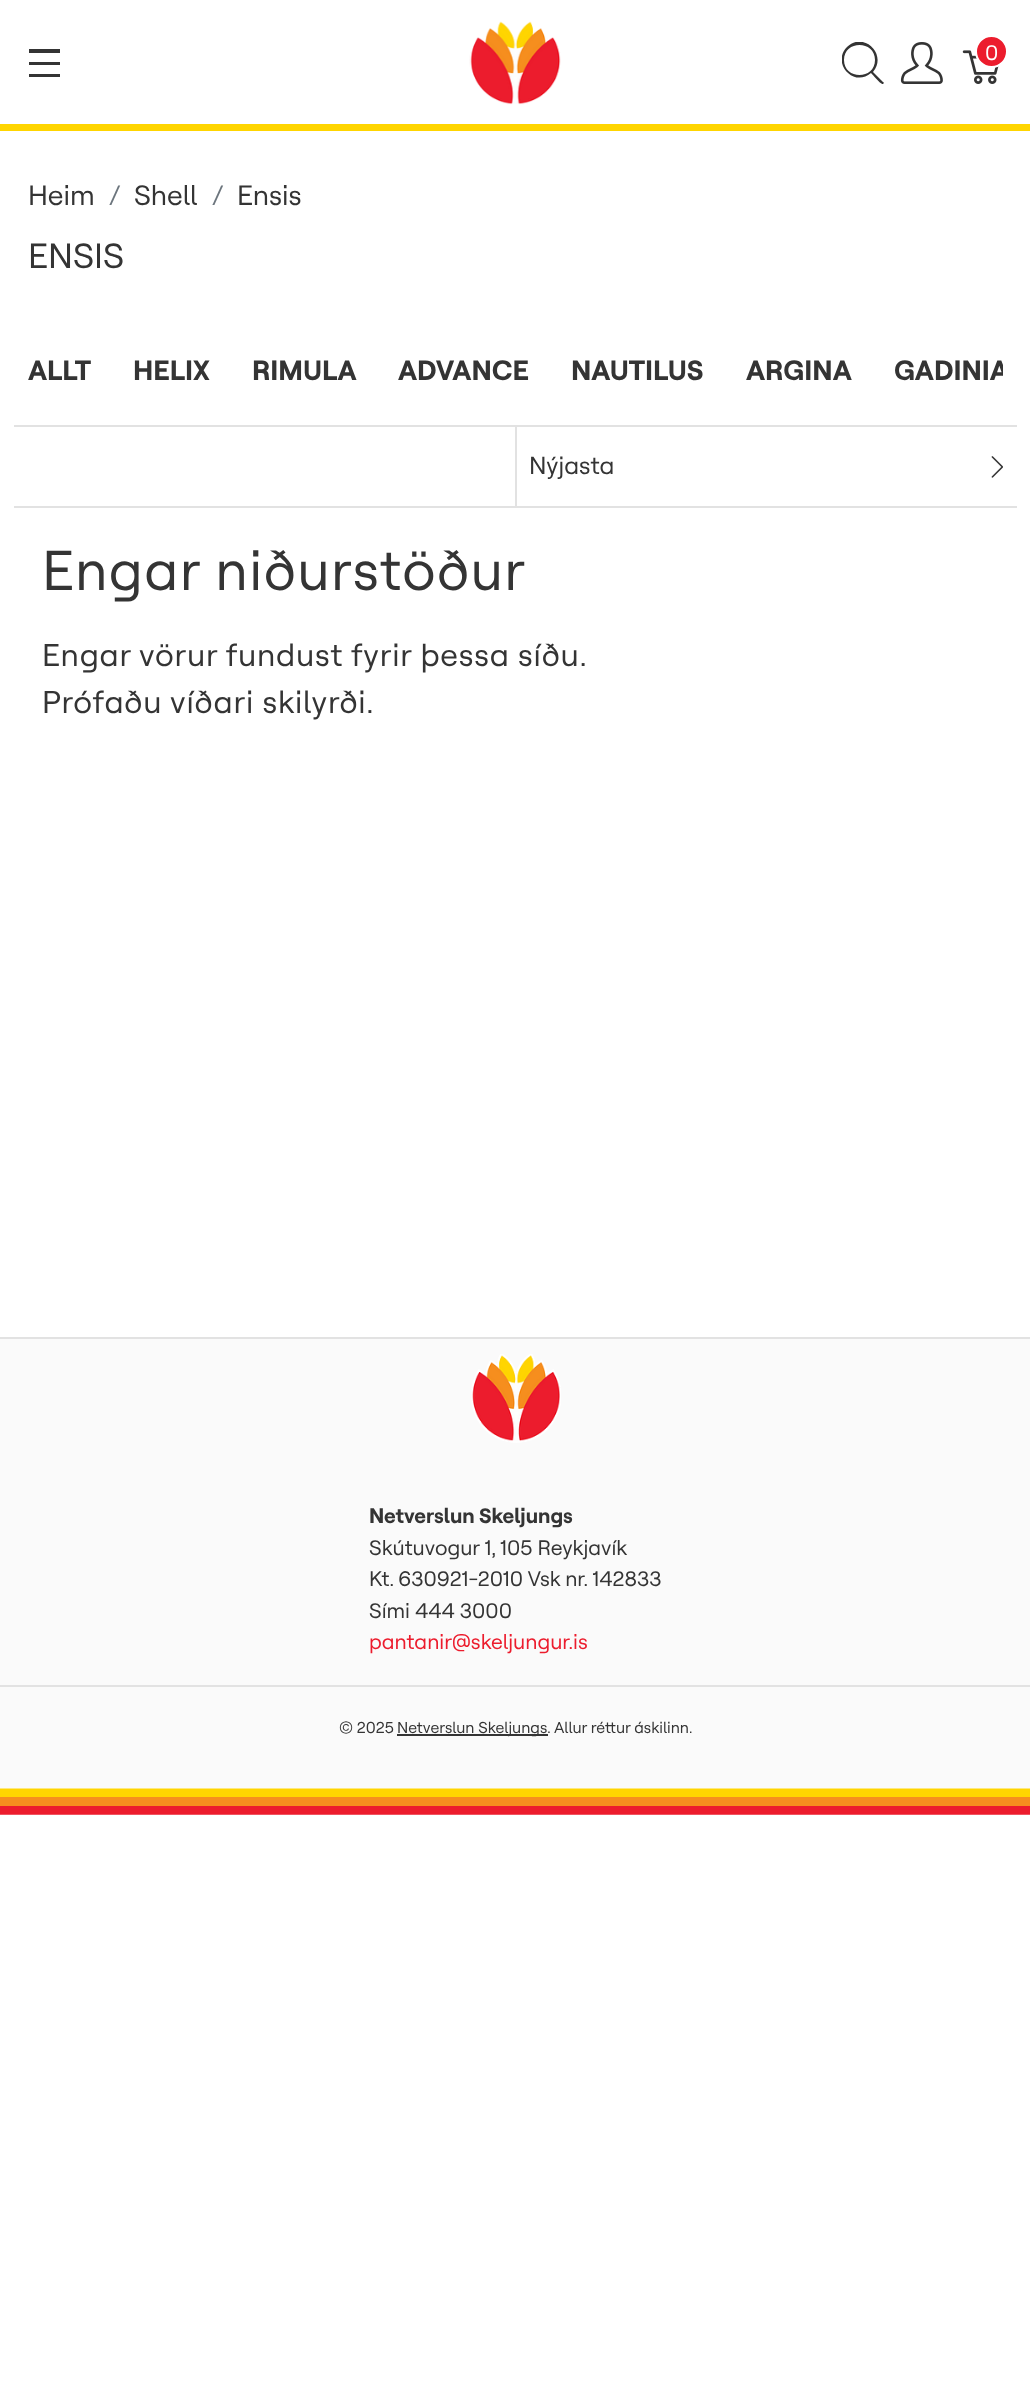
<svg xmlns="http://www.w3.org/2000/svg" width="1030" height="2381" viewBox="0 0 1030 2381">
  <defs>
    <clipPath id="clip1"><path d="M842 42h42v42H842z"/></clipPath>
    <clipPath id="clip2"><path d="M28 299h975v126H28z"/></clipPath>
  </defs>
  <rect width="100%" height="100%" fill="#fff"/>
  <path d="M0 124h1030v7H0z" fill="#ffd500"/>
  <path d="M29 49h31v4H29z" fill="#343434"/>
  <path d="M29 62h31v3H29z" fill="#343434"/>
  <path d="M29 74h31v3H29z" fill="#343434"/>
  <image x="469" y="21" width="92" height="84" href="img/1.png"/>
  <g clip-path="url(#clip1)">
    <path d="M883 82L873 72C888 54 863 31 847 47C831 63 854 88 871 73C873 75 881 85 883 84C884 83 884 82 883 82ZM844 60C844 40 875 40 875 60C875 80 844 80 844 60Z" fill="#343434"/>
  </g>
  <image x="900" y="42" width="43" height="42" href="img/2.png"/>
  <image x="962" y="50" width="37" height="34" href="img/3.png"/>
  <circle cx="991.5" cy="51.5" r="15.5" fill="#ec1c2d" stroke="#fff" stroke-width="2"/>
  <path d="M14 425h1003v2H14z" fill="#e2e2e2"/>
  <path d="M14 506h1003v2H14z" fill="#e2e2e2"/>
  <path d="M515 427h2v79H515z" fill="#e2e2e2"/>
  <image x="991" y="456" width="12" height="22" href="img/4.png"/>
  <path d="M0 1339h1030v476H0z" fill="#fafafa"/>
  <image x="0" y="1788" width="1030" height="27" href="img/5.png"/>
  <path d="M0 1337h1030v2H0z" fill="#e2e2e2"/>
  <image x="471" y="1354" width="90" height="89" href="img/6.png"/>
  <path d="M0 1685h1030v2H0z" fill="#e2e2e2"/>
  <path d="M397 1734h151v2H397z" fill="#343434"/>
  <text x="985" y="60" font-family="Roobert" font-size="21" fill="#fff">0</text>
  <text x="28" y="205" font-family="Roobert" font-size="28" fill="#343434">Heim</text>
  <text x="109" y="205" font-family="Roobert" font-size="28" fill="#6c757d">/</text>
  <text x="134" y="205" font-family="Roobert" font-size="28" fill="#343434">Shell</text>
  <text x="212" y="205" font-family="Roobert" font-size="28" fill="#6c757d">/</text>
  <text x="237" y="205" font-family="Roobert" font-size="28" fill="#343434">Ensis</text>
  <text x="28" y="268" font-family="Roobert" font-size="35" fill="#343434">ENSIS</text>
  <g font-family="Roobert" font-size="28" font-weight="bold" fill="#343434">
    <text x="28" y="380">ALLT</text>
    <text x="133" y="380">HELIX</text>
    <text x="252" y="380">RIMULA</text>
    <text x="398" y="380">ADVANCE</text>
    <text x="571" y="380">NAUTILUS</text>
    <text x="746" y="380">ARGINA</text>
  </g>
  <g clip-path="url(#clip2)">
    <text x="894" y="380" font-family="Roobert" font-size="28" font-weight="bold" fill="#343434">GADINIA</text>
  </g>
  <text x="529" y="474" font-family="Roobert" font-size="24.5" fill="#343434">Nýjasta</text>
  <text x="42" y="590" font-family="Roobert" font-size="56" letter-spacing="1.4" fill="#343434">Engar niðurstöður</text>
  <g font-family="Roobert" font-size="31.5" letter-spacing="0.8" fill="#343434">
    <text x="42" y="666">Engar vörur fundust fyrir þessa síðu.</text>
    <text x="42" y="713">Prófaðu víðari skilyrði.</text>
  </g>
  <text x="369" y="1523" font-family="Roobert" font-size="21" font-weight="bold" fill="#343434">Netverslun Skeljungs</text>
  <g font-family="Roobert" font-size="21" fill="#343434">
    <text x="369" y="1555">Skútuvogur 1, 105 Reykjavík</text>
    <text x="369" y="1586">Kt. 630921-2010 Vsk nr. 142833</text>
    <text x="369" y="1618">Sími 444 3000</text>
  </g>
  <text x="369" y="1649" font-family="Roobert" font-size="21" fill="#ec1c2d">pantanir@skeljungur.is</text>
  <g font-family="Roobert" font-size="15.75" fill="#343434">
    <text x="339" y="1733">© 2025</text>
    <text x="397" y="1733">Netverslun Skeljungs.</text>
    <text x="554" y="1733">Allur réttur áskilinn.</text>
  </g>
</svg>
